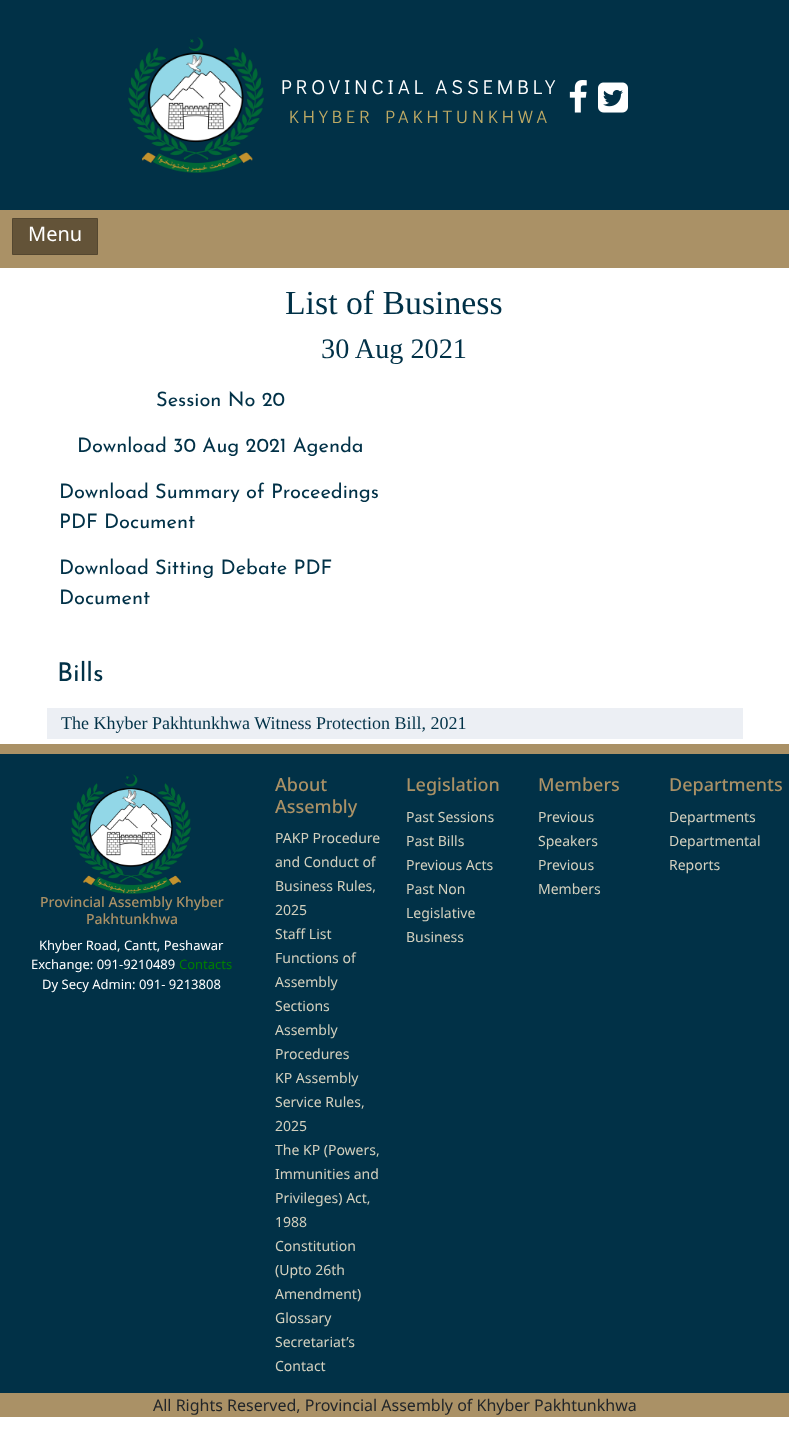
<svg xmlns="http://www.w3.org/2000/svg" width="789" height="1449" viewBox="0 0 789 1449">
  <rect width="100%" height="100%" fill="#fff"/>
  <path d="M0 0h789v210H0z" fill="#013147"/>
  <image x="128" y="37" width="136" height="136" href="img/1.png"/>
  <image x="569" y="80" width="18" height="33" href="img/2.png"/>
  <image x="598" y="82" width="30" height="31" href="img/3.png"/>
  <path d="M0 210h789v58H0z" fill="#aa9166"/>
  <path d="M12.5 218.5h85v36H12.5z" fill="#635338" stroke="#544730"/>
  <path d="M47 708h696v31H47z" fill="#eceff4"/>
  <path d="M0 754h789v639H0z" fill="#013147"/>
  <path d="M0 744h789v10H0z" fill="#aa9166"/>
  <image x="71" y="774" width="120" height="120" href="img/4.png"/>
  <path d="M0 1393h789v24H0z" fill="#aa9166"/>
  <text x="281" y="94" font-family="Didact Gothic" font-size="20" letter-spacing="4" fill="#fff">PROVINCIAL ASSEMBLY</text>
  <text x="289" y="123" font-family="Didact Gothic" font-size="18" letter-spacing="4" fill="#beaa65">KHYBER PAKHTUNKHWA</text>
  <text x="28" y="241" font-family="Noto Sans" font-size="20" fill="#fff">Menu</text>
  <text x="285" y="314" font-family="Liberation Serif" font-size="33.75" fill="#013147">List of Business</text>
  <text x="321" y="358" font-family="Liberation Serif" font-size="28.25" fill="#013147">30 Aug 2021</text>
  <g font-family="Josefin Sans" font-size="20" font-weight="100" fill="#013147">
    <text x="156" y="406">Session No 20</text>
    <text x="77" y="452">Download 30 Aug 2021 Agenda</text>
    <text x="59" y="498">Download Summary of Proceedings</text>
    <text x="59" y="528">PDF Document</text>
    <text x="59" y="574">Download Sitting Debate PDF</text>
    <text x="59" y="604">Document</text>
  </g>
  <text x="57" y="681" font-family="Josefin Sans" font-size="26" font-weight="100" fill="#013147">Bills</text>
  <text x="61" y="729" font-family="Liberation Serif" font-size="18" fill="#013147">The Khyber Pakhtunkhwa Witness Protection Bill, 2021</text>
  <g font-family="Noto Sans" font-size="18" font-weight="500" fill="#aa9166">
    <text x="275" y="791">About</text>
    <text x="275" y="813">Assembly</text>
  </g>
  <g font-family="Noto Sans" font-size="14" fill="#d3d0be">
    <text x="275" y="843">PAKP Procedure</text>
    <text x="275" y="867">and Conduct of</text>
    <text x="275" y="891">Business Rules,</text>
    <text x="275" y="915">2025</text>
    <text x="275" y="939">Staff List</text>
    <text x="275" y="963">Functions of</text>
    <text x="275" y="987">Assembly</text>
    <text x="275" y="1011">Sections</text>
    <text x="275" y="1035">Assembly</text>
    <text x="275" y="1059">Procedures</text>
    <text x="275" y="1083">KP Assembly</text>
    <text x="275" y="1107">Service Rules,</text>
    <text x="275" y="1131">2025</text>
    <text x="275" y="1155">The KP (Powers,</text>
    <text x="275" y="1179">Immunities and</text>
    <text x="275" y="1203">Privileges) Act,</text>
    <text x="275" y="1227">1988</text>
    <text x="275" y="1251">Constitution</text>
    <text x="275" y="1275">(Upto 26th</text>
    <text x="275" y="1299">Amendment)</text>
    <text x="275" y="1323">Glossary</text>
    <text x="275" y="1347">Secretariat’s</text>
    <text x="275" y="1371">Contact</text>
  </g>
  <text x="406" y="791" font-family="Noto Sans" font-size="18" font-weight="500" fill="#aa9166">Legislation</text>
  <g font-family="Noto Sans" font-size="14" fill="#d3d0be">
    <text x="406" y="822">Past Sessions</text>
    <text x="406" y="846">Past Bills</text>
    <text x="406" y="870">Previous Acts</text>
    <text x="406" y="894">Past Non</text>
    <text x="406" y="918">Legislative</text>
    <text x="406" y="942">Business</text>
  </g>
  <text x="538" y="791" font-family="Noto Sans" font-size="18" font-weight="500" fill="#aa9166">Members</text>
  <g font-family="Noto Sans" font-size="14" fill="#d3d0be">
    <text x="538" y="822">Previous</text>
    <text x="538" y="846">Speakers</text>
    <text x="538" y="870">Previous</text>
    <text x="538" y="894">Members</text>
  </g>
  <text x="669" y="791" font-family="Noto Sans" font-size="18" font-weight="500" fill="#aa9166">Departments</text>
  <g font-family="Noto Sans" font-size="14" fill="#d3d0be">
    <text x="669" y="822">Departments</text>
    <text x="669" y="846">Departmental</text>
    <text x="669" y="870">Reports</text>
  </g>
  <g font-family="Noto Sans" font-size="14" font-weight="500" fill="#aa9166">
    <text x="40" y="907">Provincial Assembly Khyber</text>
    <text x="86" y="924">Pakhtunkhwa</text>
  </g>
  <g font-family="Noto Sans" font-size="13" fill="#fff">
    <text x="39" y="950">Khyber Road, Cantt, Peshawar</text>
    <text x="31" y="969">Exchange: 091-9210489</text>
  </g>
  <text x="179" y="969" font-family="Noto Sans" font-size="13" fill="#008000">Contacts</text>
  <text x="42" y="989" font-family="Noto Sans" font-size="13" fill="#fff">Dy Secy Admin: 091- 9213808</text>
  <text x="153" y="1411" font-family="Noto Sans" font-size="16" fill="#212529">All Rights Reserved, Provincial Assembly of Khyber Pakhtunkhwa</text>
</svg>
